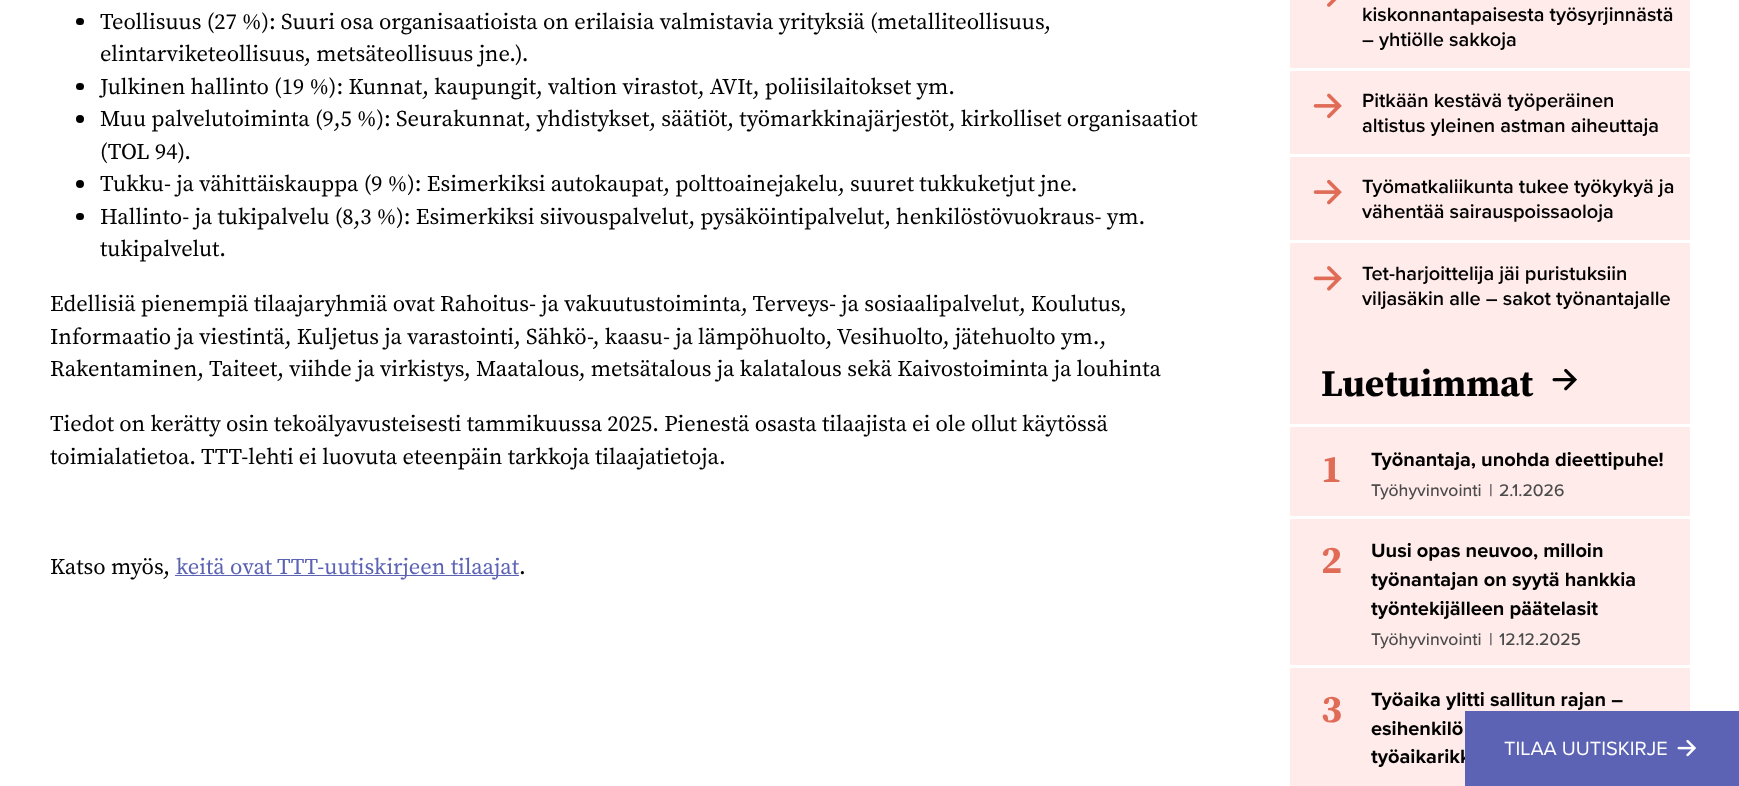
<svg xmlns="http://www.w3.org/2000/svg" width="1739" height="786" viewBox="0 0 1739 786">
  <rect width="100%" height="100%" fill="#fff"/>
  <rect x="76" y="18" width="8" height="7" rx="3.5" fill="#000"/>
  <rect x="76" y="83" width="8" height="7" rx="3.5" fill="#000"/>
  <circle cx="80" cy="119" r="4" fill="#000"/>
  <circle cx="80" cy="184" r="4" fill="#000"/>
  <rect x="76" y="213" width="8" height="7" rx="3.5" fill="#000"/>
  <path d="M175 575h344v1H175z" fill="#5c63b4"/>
  <path d="M1290 0h400v786H1290z" fill="#ffecea"/>
  <path d="M1290 68h400v3H1290z" fill="#fff"/>
  <image x="1327" y="0" width="10" height="7" href="img/1.png"/>
  <path d="M1290 154h400v3H1290z" fill="#fff"/>
  <image x="1313" y="93" width="29" height="26" href="img/2.png"/>
  <path d="M1290 240h400v3H1290z" fill="#fff"/>
  <image x="1313" y="179" width="29" height="26" href="img/3.png"/>
  <image x="1313" y="266" width="29" height="25" href="img/4.png"/>
  <path d="M1290 424h400v3H1290z" fill="#fff"/>
  <image x="1552" y="368" width="25" height="23" href="img/5.png"/>
  <path d="M1290 516h400v3H1290z" fill="#fff"/>
  <path d="M1290 665h400v3H1290z" fill="#fff"/>
  <g font-family="Source Serif Pro" font-size="22.5" fill="#000">
    <text x="100" y="29">Teollisuus (27 %): Suuri osa organisaatioista on erilaisia valmistavia yrityksiä (metalliteollisuus,</text>
    <text x="100" y="61">elintarviketeollisuus, metsäteollisuus jne.).</text>
    <text x="100" y="94">Julkinen hallinto (19 %): Kunnat, kaupungit, valtion virastot, AVIt, poliisilaitokset ym.</text>
    <text x="100" y="126">Muu palvelutoiminta (9,5 %): Seurakunnat, yhdistykset, säätiöt, työmarkkinajärjestöt, kirkolliset organisaatiot</text>
    <text x="100" y="159">(TOL 94).</text>
    <text x="100" y="191">Tukku- ja vähittäiskauppa (9 %): Esimerkiksi autokaupat, polttoainejakelu, suuret tukkuketjut jne.</text>
    <text x="100" y="224">Hallinto- ja tukipalvelu (8,3 %): Esimerkiksi siivouspalvelut, pysäköintipalvelut, henkilöstövuokraus- ym.</text>
    <text x="100" y="256">tukipalvelut.</text>
    <text x="50" y="311">Edellisiä pienempiä tilaajaryhmiä ovat Rahoitus- ja vakuutustoiminta, Terveys- ja sosiaalipalvelut, Koulutus,</text>
    <text x="50" y="344">Informaatio ja viestintä, Kuljetus ja varastointi, Sähkö-, kaasu- ja lämpöhuolto, Vesihuolto, jätehuolto ym.,</text>
    <text x="50" y="376">Rakentaminen, Taiteet, viihde ja virkistys, Maatalous, metsätalous ja kalatalous sekä Kaivostoiminta ja louhinta</text>
    <text x="50" y="431">Tiedot on kerätty osin tekoälyavusteisesti tammikuussa 2025. Pienestä osasta tilaajista ei ole ollut käytössä</text>
    <text x="50" y="464">toimialatietoa. TTT-lehti ei luovuta eteenpäin tarkkoja tilaajatietoja.</text>
    <text x="50" y="574">Katso myös,</text>
  </g>
  <text x="176" y="574" font-family="Source Serif Pro" font-size="22.5" fill="#5c63b4">keitä ovat TTT-uutiskirjeen tilaajat</text>
  <text x="519" y="574" font-family="Source Serif Pro" font-size="22.5" fill="#000">.</text>
  <g font-family="Proxima Nova" font-size="20" font-weight="600" fill="#000">
    <text x="1362" y="21">kiskonnantapaisesta työsyrjinnästä</text>
    <text x="1362" y="46">– yhtiölle sakkoja</text>
    <text x="1362" y="107">Pitkään kestävä työperäinen</text>
    <text x="1362" y="132">altistus yleinen astman aiheuttaja</text>
    <text x="1362" y="193">Työmatkaliikunta tukee työkykyä ja</text>
    <text x="1362" y="218">vähentää sairauspoissaoloja</text>
    <text x="1362" y="280">Tet-harjoittelija jäi puristuksiin</text>
    <text x="1362" y="305">viljasäkin alle – sakot työnantajalle</text>
  </g>
  <text x="1321" y="396" font-family="Source Serif Pro" font-size="37.5" font-weight="bold" fill="#000">Luetuimmat</text>
  <text x="1321" y="482" font-family="Source Serif Pro" font-size="39" font-weight="bold" fill="#e06c58">1</text>
  <text x="1371" y="466" font-family="Proxima Nova" font-size="20" font-weight="bold" fill="#000">Työnantaja, unohda dieettipuhe!</text>
  <g font-family="Proxima Nova" font-size="17.5" font-weight="500" fill="#4b4b4b">
    <text x="1371" y="496">Työhyvinvointi</text>
    <text x="1489" y="496">|</text>
    <text x="1499" y="496">2.1.2026</text>
  </g>
  <text x="1321" y="573" font-family="Source Serif Pro" font-size="39" font-weight="bold" fill="#e06c58">2</text>
  <g font-family="Proxima Nova" font-size="20" font-weight="bold" fill="#000">
    <text x="1371" y="557">Uusi opas neuvoo, milloin</text>
    <text x="1371" y="586">työnantajan on syytä hankkia</text>
    <text x="1371" y="615">työntekijälleen päätelasit</text>
  </g>
  <g font-family="Proxima Nova" font-size="17.5" font-weight="500" fill="#4b4b4b">
    <text x="1371" y="645">Työhyvinvointi</text>
    <text x="1489" y="645">|</text>
    <text x="1499" y="645">12.12.2025</text>
  </g>
  <text x="1321" y="722" font-family="Source Serif Pro" font-size="39" font-weight="bold" fill="#e06c58">3</text>
  <g font-family="Proxima Nova" font-size="20" font-weight="bold" fill="#000">
    <text x="1371" y="706">Työaika ylitti sallitun rajan –</text>
    <text x="1371" y="735">esihenkilö</text>
    <text x="1371" y="763">työaikarikk</text>
  </g>
  <path d="M1465 711h274v75H1465z" fill="#5c63b4"/>
  <text x="1504" y="755" font-family="Proxima Nova" font-size="20" fill="#fff">TILAA UUTISKIRJE</text>
  <image x="1677" y="739" width="20" height="18" href="img/6.png"/>
</svg>
